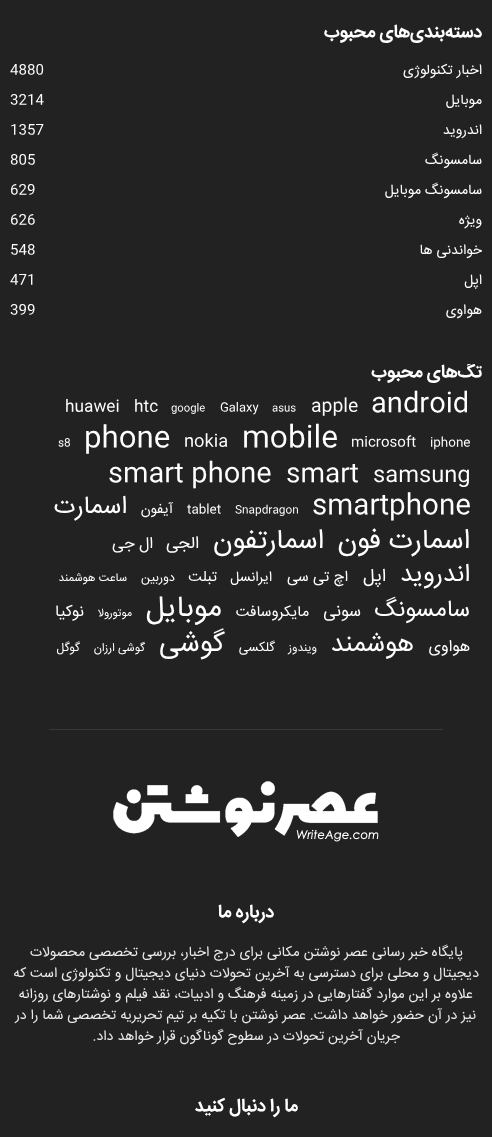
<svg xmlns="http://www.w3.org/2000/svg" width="492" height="1137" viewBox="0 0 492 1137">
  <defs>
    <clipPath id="clip1"><path d="M10 364h472v305H10z"/></clipPath>
  </defs>
  <rect width="100%" height="100%" fill="#222"/>
  <path d="M49 729h394v1H49z" fill="#383838"/>
  <image x="113" y="781" width="266" height="61" href="img/1.png"/>
  <text x="482" y="37" font-family="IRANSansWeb" font-size="18" font-weight="bold" direction="rtl" fill="#fff">دسته‌بندی‌های محبوب</text>
  <text x="482" y="74" font-family="IRANSansWeb" font-size="14" direction="rtl" fill="#fff">اخبار تکنولوژی</text>
  <text x="10" y="74" font-family="IRANSansWeb" font-size="14" fill="#fff">4880</text>
  <text x="482" y="104" font-family="IRANSansWeb" font-size="14" direction="rtl" fill="#fff">موبایل</text>
  <text x="10" y="104" font-family="IRANSansWeb" font-size="14" fill="#fff">3214</text>
  <text x="482" y="134" font-family="IRANSansWeb" font-size="14" direction="rtl" fill="#fff">اندروید</text>
  <text x="10" y="134" font-family="IRANSansWeb" font-size="14" fill="#fff">1357</text>
  <text x="482" y="164" font-family="IRANSansWeb" font-size="14" direction="rtl" fill="#fff">سامسونگ</text>
  <text x="10" y="164" font-family="IRANSansWeb" font-size="14" fill="#fff">805</text>
  <text x="482" y="194" font-family="IRANSansWeb" font-size="14" direction="rtl" fill="#fff">سامسونگ موبایل</text>
  <text x="10" y="194" font-family="IRANSansWeb" font-size="14" fill="#fff">629</text>
  <text x="482" y="224" font-family="IRANSansWeb" font-size="14" direction="rtl" fill="#fff">ویژه</text>
  <text x="10" y="224" font-family="IRANSansWeb" font-size="14" fill="#fff">626</text>
  <text x="482" y="254" font-family="IRANSansWeb" font-size="14" direction="rtl" fill="#fff">خواندنی ها</text>
  <text x="10" y="254" font-family="IRANSansWeb" font-size="14" fill="#fff">548</text>
  <text x="482" y="284" font-family="IRANSansWeb" font-size="14" direction="rtl" fill="#fff">اپل</text>
  <text x="10" y="284" font-family="IRANSansWeb" font-size="14" fill="#fff">471</text>
  <text x="482" y="314" font-family="IRANSansWeb" font-size="14" direction="rtl" fill="#fff">هواوی</text>
  <text x="10" y="314" font-family="IRANSansWeb" font-size="14" fill="#fff">399</text>
  <g clip-path="url(#clip1)">
    <text x="482" y="377" font-family="IRANSansWeb" font-size="18" font-weight="bold" direction="rtl" fill="#fff">تگ‌های محبوب</text>
  </g>
  <text x="371" y="411" font-family="IRANSansWeb" font-size="27" fill="#fff">android</text>
  <text x="311" y="411" font-family="IRANSansWeb" font-size="18" fill="#fff">apple</text>
  <text x="272" y="411" font-family="IRANSansWeb" font-size="10.5" fill="#fff">asus</text>
  <text x="220" y="411" font-family="IRANSansWeb" font-size="12" fill="#fff">Galaxy</text>
  <text x="171" y="411" font-family="IRANSansWeb" font-size="10.5" fill="#fff">google</text>
  <g font-family="IRANSansWeb" font-size="16" fill="#fff">
    <text x="134" y="411">htc</text>
    <text x="65" y="411">huawei</text>
  </g>
  <text x="430" y="446" font-family="IRANSansWeb" font-size="12.5" fill="#fff">iphone</text>
  <text x="351" y="446" font-family="IRANSansWeb" font-size="14" fill="#fff">microsoft</text>
  <text x="242" y="446" font-family="IRANSansWeb" font-size="29.5" fill="#fff">mobile</text>
  <text x="184" y="446" font-family="IRANSansWeb" font-size="17" fill="#fff">nokia</text>
  <text x="84" y="446" font-family="IRANSansWeb" font-size="29" fill="#fff">phone</text>
  <text x="58" y="446" font-family="IRANSansWeb" font-size="11" fill="#fff">s8</text>
  <text x="373" y="481" font-family="IRANSansWeb" font-size="22" fill="#fff">samsung</text>
  <text x="286" y="481" font-family="IRANSansWeb" font-size="26" fill="#fff">smart</text>
  <text x="108" y="481" font-family="IRANSansWeb" font-size="27" fill="#fff">smart phone</text>
  <text x="312" y="513" font-family="IRANSansWeb" font-size="27.5" fill="#fff">smartphone</text>
  <text x="235" y="513" font-family="IRANSansWeb" font-size="11" fill="#fff">Snapdragon</text>
  <text x="187" y="513" font-family="IRANSansWeb" font-size="12.5" fill="#fff">tablet</text>
  <text x="173" y="513" font-family="IRANSansWeb" font-size="14" direction="rtl" fill="#fff">آیفون</text>
  <text x="127" y="513" font-family="IRANSansWeb" font-size="25" direction="rtl" fill="#fff">اسمارت</text>
  <text x="470" y="548" font-family="IRANSansWeb" font-size="27.75" direction="rtl" fill="#fff">اسمارت فون</text>
  <text x="324" y="548" font-family="IRANSansWeb" font-size="27.5" direction="rtl" fill="#fff">اسمارتفون</text>
  <text x="199" y="548" font-family="IRANSansWeb" font-size="17" direction="rtl" fill="#fff">الجی</text>
  <text x="153" y="548" font-family="IRANSansWeb" font-size="16" direction="rtl" fill="#fff">ال جی</text>
  <text x="470" y="581" font-family="IRANSansWeb" font-size="25" direction="rtl" fill="#fff">اندروید</text>
  <text x="386" y="581" font-family="IRANSansWeb" font-size="18" direction="rtl" fill="#fff">اپل</text>
  <text x="348" y="581" font-family="IRANSansWeb" font-size="15" direction="rtl" fill="#fff">اچ تی سی</text>
  <text x="272" y="581" font-family="IRANSansWeb" font-size="14" direction="rtl" fill="#fff">ایرانسل</text>
  <text x="217" y="581" font-family="IRANSansWeb" font-size="15" direction="rtl" fill="#fff">تبلت</text>
  <text x="175" y="581" font-family="IRANSansWeb" font-size="12.5" direction="rtl" fill="#fff">دوربین</text>
  <text x="127" y="581" font-family="IRANSansWeb" font-size="11.5" direction="rtl" fill="#fff">ساعت هوشمند</text>
  <text x="470" y="616" font-family="IRANSansWeb" font-size="23.5" direction="rtl" fill="#fff">سامسونگ</text>
  <text x="361" y="616" font-family="IRANSansWeb" font-size="17" direction="rtl" fill="#fff">سونی</text>
  <text x="309" y="616" font-family="IRANSansWeb" font-size="15" direction="rtl" fill="#fff">مایکروسافت</text>
  <text x="222" y="616" font-family="IRANSansWeb" font-size="29.5" direction="rtl" fill="#fff">موبایل</text>
  <text x="132" y="616" font-family="IRANSansWeb" font-size="11" direction="rtl" fill="#fff">موتورولا</text>
  <g font-family="IRANSansWeb" font-size="16" direction="rtl" fill="#fff">
    <text x="84" y="616">نوکیا</text>
    <text x="470" y="651">هواوی</text>
  </g>
  <text x="414" y="651" font-family="IRANSansWeb" font-size="26" direction="rtl" fill="#fff">هوشمند</text>
  <text x="317" y="651" font-family="IRANSansWeb" font-size="11.5" direction="rtl" fill="#fff">ویندوز</text>
  <text x="275" y="651" font-family="IRANSansWeb" font-size="13" direction="rtl" fill="#fff">گلکسی</text>
  <text x="225" y="651" font-family="IRANSansWeb" font-size="28" direction="rtl" fill="#fff">گوشی</text>
  <text x="145" y="651" font-family="IRANSansWeb" font-size="11.5" direction="rtl" fill="#fff">گوشی ارزان</text>
  <text x="80" y="651" font-family="IRANSansWeb" font-size="12" direction="rtl" fill="#fff">گوگل</text>
  <text x="274" y="917" font-family="IRANSansWeb" font-size="18" font-weight="bold" direction="rtl" fill="#fff">درباره ما</text>
  <g font-family="IRANSansWeb" font-size="14" direction="rtl" fill="#eaeaea">
    <text x="463" y="956">پایگاه خبر رسانی عصر نوشتن مکانی برای درج اخبار، بررسی تخصصی محصولات</text>
    <text x="479" y="977">دیجیتال و محلی برای دسترسی به آخرین تحولات دنیای دیجیتال و تکنولوژی است که</text>
    <text x="473" y="998">علاوه بر این موارد گفتارهایی در زمینه فرهنگ و ادبیات، نقد فیلم و نوشتارهای روزانه‌</text>
    <text x="476" y="1019">نیز در آن حضور خواهد داشت. عصر نوشتن با تکیه بر تیم تحریریه تخصصی شما را در</text>
    <text x="400" y="1040">جریان آخرین تحولات در سطوح گوناگون قرار خواهد داد.</text>
  </g>
  <text x="298" y="1111" font-family="IRANSansWeb" font-size="18" font-weight="bold" direction="rtl" fill="#fff">ما را دنبال کنید</text>
</svg>
